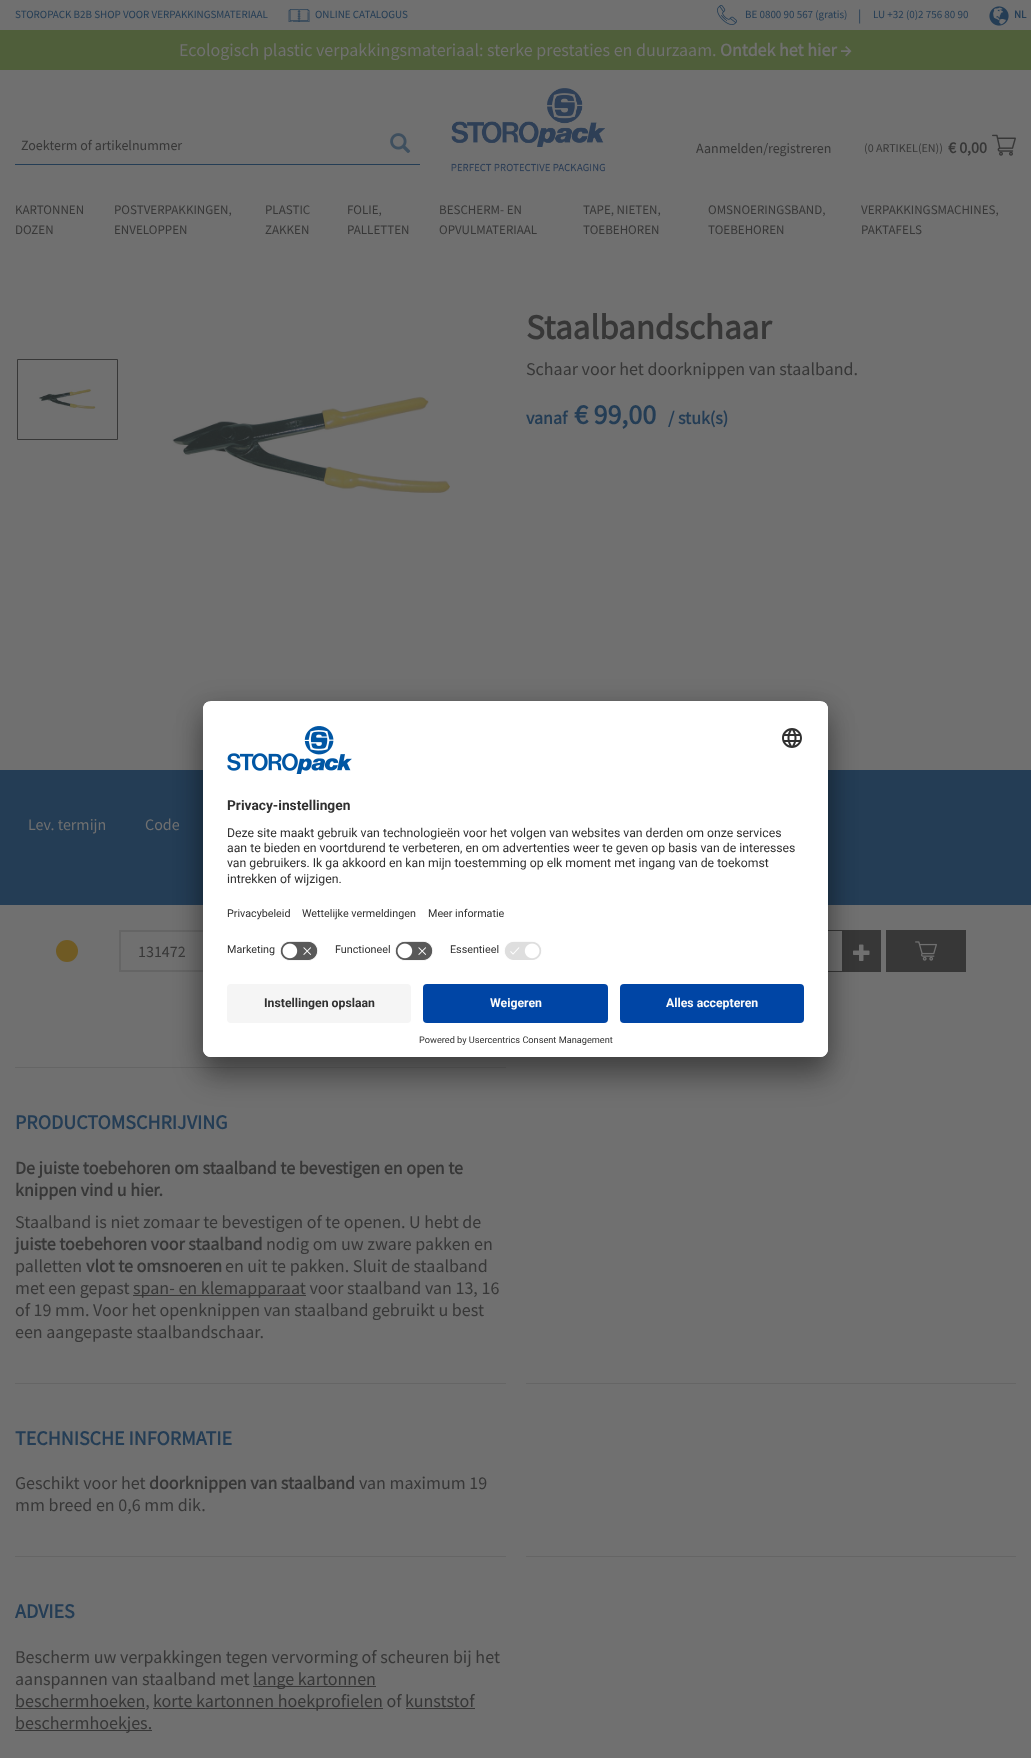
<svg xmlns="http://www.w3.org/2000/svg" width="1031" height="1758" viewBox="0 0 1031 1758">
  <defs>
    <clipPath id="clip1"><rect x="203" y="701" width="625" height="356" rx="8"/></clipPath>
    <clipPath id="clip2"><path d="M211 701H820C824.5 701 828 704.5 828 709V976H203V709C203 704.5 206.5 701 211 701Z"/></clipPath>
  </defs>
  <rect width="100%" height="100%" fill="#707070"/>
  <image x="288" y="9" width="22" height="13" href="img/1.png"/>
  <image x="717" y="5" width="20" height="20" href="img/2.png"/>
  <image x="989" y="6" width="20" height="20" href="img/3.png"/>
  <path d="M0 30h1031v40H0z" fill="#4f5e3a"/>
  <path d="M15 164h405v1H15z" fill="#243d55"/>
  <image x="390" y="133" width="21" height="20" href="img/4.png"/>
  <image x="451" y="88" width="154" height="84" href="img/5.png"/>
  <image x="992" y="134" width="24" height="22" href="img/6.png"/>
  <path d="M17.5 359.5h100v80H17.5z" fill="none" stroke="#373737"/>
  <image x="37" y="389" width="60" height="20" href="img/7.png"/>
  <image x="172" y="396" width="278" height="98" href="img/8.png"/>
  <path d="M0 770h1031v135H0z" fill="#243d55"/>
  <circle cx="67" cy="951" r="11" fill="#6f5a24"/>
  <path d="M120 931h84v40H120z" fill="none" stroke="#656565" stroke-width="2"/>
  <path d="M828 930h15v1H828z" fill="#373737"/>
  <path d="M828 971h15v1H828z" fill="#373737"/>
  <path d="M842 930h39v42H842z" fill="#373737"/>
  <image x="853" y="944" width="17" height="17" href="img/9.png"/>
  <path d="M886 930h80v42H886z" fill="#373737"/>
  <image x="915" y="941" width="22" height="20" href="img/10.png"/>
  <path d="M15 1067h491v1H15z" fill="#656565"/>
  <path d="M133 1295h173v1H133z" fill="#373737"/>
  <path d="M526 1383h490v1H526z" fill="#656565"/>
  <path d="M15 1383h491v1H15z" fill="#656565"/>
  <path d="M526 1556h490v1H526z" fill="#656565"/>
  <path d="M15 1556h491v1H15z" fill="#656565"/>
  <path d="M253 1686h123v1H253z" fill="#373737"/>
  <path d="M15 1708h130v1H15z" fill="#373737"/>
  <path d="M153 1708h230v1H153z" fill="#373737"/>
  <path d="M406 1708h69v1H406z" fill="#373737"/>
  <path d="M15 1730h137v1H15z" fill="#373737"/>
  <rect x="203" y="721" width="625" height="356" rx="8" fill="#0000004d" filter="blur(14px)"/>
  <rect x="203" y="706" width="625" height="356" rx="8" fill="#00000038" filter="blur(13px)"/>
  <rect x="203" y="701" width="625" height="356" rx="8" fill="#fff"/>
  <g clip-path="url(#clip1)">
    <g clip-path="url(#clip2)">
      <path d="M203 702h625v274H203z" fill="#fff"/>
      <path d="M203 702h625v234H203z" fill="#fff"/>
    </g>
  </g>
  <image x="227" y="726" width="125" height="48" href="img/11.png"/>
  <image x="782" y="728" width="20" height="20" href="img/12.png"/>
  <image x="280" y="941" width="38" height="20" href="img/13.png"/>
  <image x="395" y="941" width="38" height="20" href="img/13.png"/>
  <image x="504" y="941" width="38" height="19" href="img/14.png"/>
  <path d="M203 976H828V1049C828 1053.5 824.5 1057 820 1057H211C206.5 1057 203 1053.5 203 1049Z" fill="#fff"/>
  <rect x="227" y="984" width="184" height="39" rx="4" fill="#f5f5f5"/>
  <rect x="423" y="984" width="185" height="39" rx="4" fill="#0045a5"/>
  <rect x="620" y="984" width="184" height="39" rx="4" fill="#0045a5"/>
  <g font-family="Source Sans Pro" font-size="11" fill="#243d55">
    <text x="15" y="18">STOROPACK B2B SHOP VOOR VERPAKKINGSMATERIAAL</text>
    <text x="315" y="18">ONLINE CATALOGUS</text>
    <text x="745" y="18">BE 0800 90 567 (gratis)</text>
  </g>
  <text x="858" y="20" font-family="Source Sans Pro" font-size="14" fill="#243d55">|</text>
  <text x="873" y="18" font-family="Source Sans Pro" font-size="11" fill="#243d55">LU +32 (0)2 756 80 90</text>
  <text x="1014" y="18" font-family="Source Sans Pro" font-size="11" font-weight="bold" fill="#243d55">NL</text>
  <text x="179" y="56" font-family="Source Sans Pro" font-size="18" fill="#707070">Ecologisch plastic verpakkingsmateriaal: sterke prestaties en duurzaam.</text>
  <text x="720" y="56" font-family="Source Sans Pro" font-size="18" font-weight="bold" fill="#707070">Ontdek het hier →</text>
  <g font-family="Source Sans Pro" font-size="14" fill="#373737">
    <text x="21" y="150">Zoekterm of artikelnummer</text>
    <text x="696" y="153">Aanmelden/registreren</text>
  </g>
  <text x="864" y="152" font-family="Source Sans Pro" font-size="12" fill="#373737">(0 ARTIKEL(EN))</text>
  <text x="948" y="153" font-family="Source Sans Pro" font-size="16" font-weight="bold" fill="#373737">€ 0,00</text>
  <g font-family="Source Sans Pro" font-size="13" fill="#373737">
    <text x="15" y="214">KARTONNEN</text>
    <text x="15" y="234">DOZEN</text>
    <text x="114" y="214">POSTVERPAKKINGEN,</text>
    <text x="114" y="234">ENVELOPPEN</text>
    <text x="265" y="214">PLASTIC</text>
    <text x="265" y="234">ZAKKEN</text>
    <text x="347" y="214">FOLIE,</text>
    <text x="347" y="234">PALLETTEN</text>
    <text x="439" y="214">BESCHERM- EN</text>
    <text x="439" y="234">OPVULMATERIAAL</text>
    <text x="583" y="214">TAPE, NIETEN,</text>
    <text x="583" y="234">TOEBEHOREN</text>
    <text x="708" y="214">OMSNOERINGSBAND,</text>
    <text x="708" y="234">TOEBEHOREN</text>
    <text x="861" y="214">VERPAKKINGSMACHINES,</text>
    <text x="861" y="234">PAKTAFELS</text>
  </g>
  <text x="526" y="339" font-family="Source Sans Pro" font-size="35" font-weight="bold" fill="#373737">Staalbandschaar</text>
  <text x="526" y="375" font-family="Source Sans Pro" font-size="18" fill="#373737">Schaar voor het doorknippen van staalband.</text>
  <text x="526" y="424" font-family="Source Sans Pro" font-size="18" font-weight="bold" fill="#243d55">vanaf</text>
  <text x="574" y="424" font-family="Source Sans Pro" font-size="28" font-weight="bold" fill="#243d55">€ 99,00</text>
  <text x="668" y="424" font-family="Source Sans Pro" font-size="18" font-weight="bold" fill="#243d55">/ stuk(s)</text>
  <g font-family="Source Sans Pro" font-size="16" fill="#707070">
    <text x="28" y="830">Lev. termijn</text>
    <text x="145" y="830">Code</text>
  </g>
  <text x="138" y="957" font-family="Source Sans Pro" font-size="16" fill="#373737">131472</text>
  <text x="15" y="1129" font-family="Source Sans Pro" font-size="20" font-weight="bold" fill="#243d55">PRODUCTOMSCHRIJVING</text>
  <g font-family="Source Sans Pro" font-size="18" font-weight="bold" fill="#373737">
    <text x="15" y="1174">De juiste toebehoren om staalband te bevestigen en open te</text>
    <text x="15" y="1196">knippen vind u hier.</text>
  </g>
  <text x="15" y="1228" font-family="Source Sans Pro" font-size="18" fill="#373737">Staalband is niet zomaar te bevestigen of te openen. U hebt de</text>
  <text x="15" y="1250" font-family="Source Sans Pro" font-size="18" font-weight="bold" fill="#373737">juiste toebehoren voor staalband</text>
  <g font-family="Source Sans Pro" font-size="18" fill="#373737">
    <text x="266" y="1250">nodig om uw zware pakken en</text>
    <text x="15" y="1272">palletten</text>
  </g>
  <text x="86" y="1272" font-family="Source Sans Pro" font-size="18" font-weight="bold" fill="#373737">vlot te omsnoeren</text>
  <g font-family="Source Sans Pro" font-size="18" fill="#373737">
    <text x="225" y="1272">en uit te pakken. Sluit de staalband</text>
    <text x="15" y="1294">met een gepast</text>
    <text x="133" y="1294">span- en klemapparaat voor staalband van 13, 16</text>
    <text x="15" y="1316">of 19 mm. Voor het openknippen van staalband gebruikt u best</text>
    <text x="15" y="1338">een aangepaste staalbandschaar.</text>
  </g>
  <text x="15" y="1445" font-family="Source Sans Pro" font-size="20" font-weight="bold" fill="#243d55">TECHNISCHE INFORMATIE</text>
  <text x="15" y="1489" font-family="Source Sans Pro" font-size="18" fill="#373737">Geschikt voor het</text>
  <text x="149" y="1489" font-family="Source Sans Pro" font-size="18" font-weight="bold" fill="#373737">doorknippen van staalband</text>
  <g font-family="Source Sans Pro" font-size="18" fill="#373737">
    <text x="359" y="1489">van maximum 19</text>
    <text x="15" y="1511">mm breed en 0,6 mm dik.</text>
  </g>
  <text x="15" y="1618" font-family="Source Sans Pro" font-size="20" font-weight="bold" fill="#243d55">ADVIES</text>
  <g font-family="Source Sans Pro" font-size="18" fill="#373737">
    <text x="15" y="1663">Bescherm uw verpakkingen tegen vervorming of scheuren bij het</text>
    <text x="15" y="1685">aanspannen van staalband met</text>
    <text x="253" y="1685">lange kartonnen</text>
    <text x="15" y="1707">beschermhoeken,</text>
    <text x="153" y="1707">korte kartonnen hoekprofielen of kunststof</text>
    <text x="15" y="1729">beschermhoekjes.</text>
  </g>
  <text x="227" y="810" font-family="Roboto" font-size="13.75" font-weight="bold" fill="#303030">Privacy-instellingen</text>
  <g font-family="Roboto" font-size="12.25" fill="#303030">
    <text x="227" y="837">Deze site maakt gebruik van technologieën voor het volgen van websites van derden om onze services</text>
    <text x="227" y="852">aan te bieden en voortdurend te verbeteren, en om advertenties weer te geven op basis van de interesses</text>
    <text x="227" y="867">van gebruikers. Ik ga akkoord en kan mijn toestemming op elk moment met ingang van de toekomst</text>
    <text x="227" y="883">intrekken of wijzigen.</text>
  </g>
  <g font-family="Roboto" font-size="10.75" fill="#303030">
    <text x="227" y="917">Privacybeleid</text>
    <text x="302" y="917">Wettelijke vermeldingen</text>
    <text x="428" y="917">Meer informatie</text>
    <text x="227" y="953">Marketing</text>
    <text x="335" y="953">Functioneel</text>
    <text x="450" y="953">Essentieel</text>
  </g>
  <text x="264" y="1007" font-family="Roboto" font-size="12.25" font-weight="bold" fill="#303030">Instellingen opslaan</text>
  <g font-family="Roboto" font-size="12.25" font-weight="bold" fill="#fafafa">
    <text x="490" y="1007">Weigeren</text>
    <text x="666" y="1007">Alles accepteren</text>
  </g>
  <text x="419" y="1043" font-family="Roboto" font-size="9.2" fill="#303030">Powered by Usercentrics Consent Management</text>
</svg>
